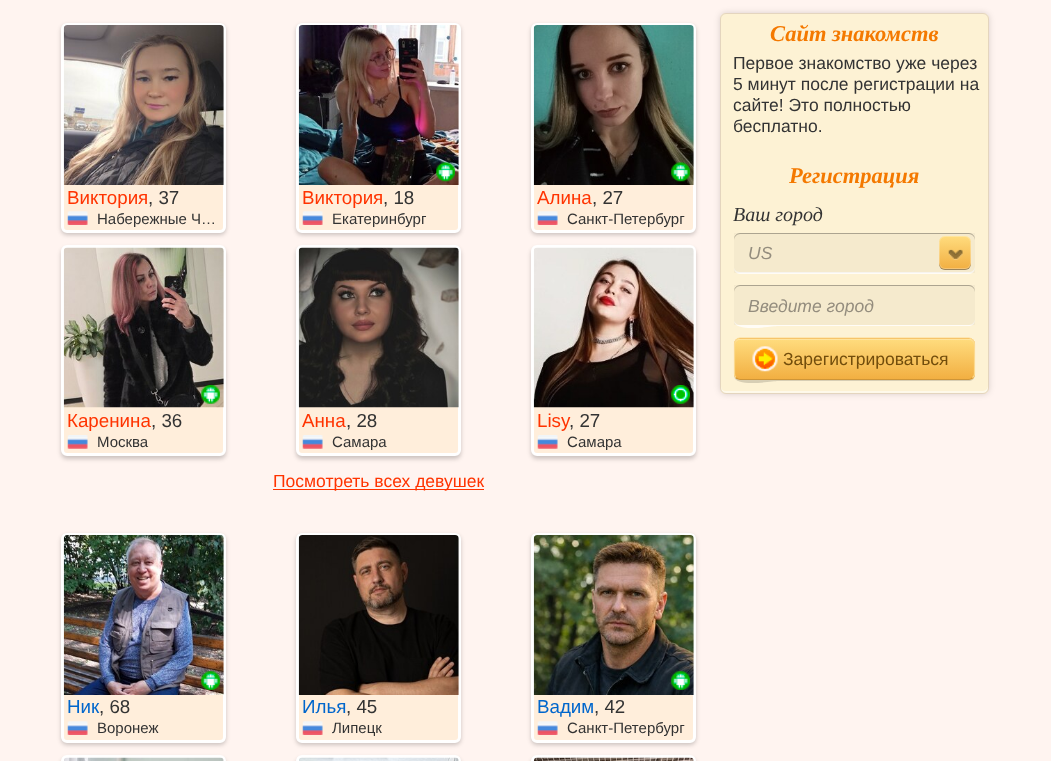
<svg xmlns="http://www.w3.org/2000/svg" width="1051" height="761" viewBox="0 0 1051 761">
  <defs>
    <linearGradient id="g1" gradientUnits="userSpaceOnUse" x1="955" y1="236" x2="955" y2="269"><stop offset="0" stop-color="#ffdc7e"/><stop offset="1" stop-color="#f2af42"/></linearGradient>
    <clipPath id="clip1"><rect x="734" y="338" width="241" height="42" rx="6"/></clipPath>
    <linearGradient id="g2" gradientUnits="userSpaceOnUse" x1="854" y1="339" x2="854" y2="379"><stop offset="0" stop-color="#ffdc7e"/><stop offset="1" stop-color="#f2af42"/></linearGradient>
  </defs>
  <rect width="100%" height="100%" fill="#fff4f0"/>
  <rect x="61" y="25" width="165" height="210" rx="6" fill="#00000033" filter="blur(2px)"/>
  <rect x="62.5" y="24.5" width="162" height="207" rx="4.5" fill="#ffeedb" stroke="#fff" stroke-width="3"/>
  <image x="63" y="25" width="161" height="160" href="img/1.png"/>
  <image x="67" y="211" width="21" height="14" href="img/2.png"/>
  <rect x="296" y="25" width="165" height="210" rx="6" fill="#00000033" filter="blur(2px)"/>
  <rect x="297.5" y="24.5" width="162" height="207" rx="4.5" fill="#ffeedb" stroke="#fff" stroke-width="3"/>
  <image x="298" y="25" width="161" height="160" href="img/3.png"/>
  <image x="436" y="162" width="19" height="20" href="img/4.png"/>
  <image x="302" y="211" width="21" height="14" href="img/5.png"/>
  <rect x="531" y="25" width="165" height="210" rx="6" fill="#00000033" filter="blur(2px)"/>
  <rect x="532.5" y="24.5" width="162" height="207" rx="4.5" fill="#ffeedb" stroke="#fff" stroke-width="3"/>
  <image x="533" y="25" width="161" height="160" href="img/6.png"/>
  <image x="671" y="162" width="19" height="20" href="img/7.png"/>
  <image x="537" y="211" width="21" height="14" href="img/2.png"/>
  <rect x="61" y="248" width="165" height="211" rx="6" fill="#00000033" filter="blur(2px)"/>
  <rect x="62.5" y="246.5" width="162" height="208" rx="4.5" fill="#ffeedb" stroke="#fff" stroke-width="3"/>
  <image x="63" y="247" width="161" height="161" href="img/8.png"/>
  <image x="201" y="385" width="19" height="19" href="img/9.png"/>
  <image x="67" y="435" width="21" height="14" href="img/10.png"/>
  <rect x="296" y="248" width="165" height="211" rx="6" fill="#00000033" filter="blur(2px)"/>
  <rect x="297.5" y="246.5" width="162" height="208" rx="4.5" fill="#ffeedb" stroke="#fff" stroke-width="3"/>
  <image x="298" y="247" width="161" height="161" href="img/11.png"/>
  <image x="302" y="435" width="21" height="14" href="img/10.png"/>
  <rect x="531" y="248" width="165" height="211" rx="6" fill="#00000033" filter="blur(2px)"/>
  <rect x="532.5" y="246.5" width="162" height="208" rx="4.5" fill="#ffeedb" stroke="#fff" stroke-width="3"/>
  <image x="533" y="247" width="161" height="161" href="img/12.png"/>
  <image x="671" y="385" width="19" height="19" href="img/13.png"/>
  <image x="537" y="435" width="21" height="14" href="img/10.png"/>
  <path d="M273 489h211v1H273z" fill="#f30"/>
  <rect x="61" y="535" width="165" height="210" rx="6" fill="#00000033" filter="blur(2px)"/>
  <rect x="62.5" y="534.5" width="162" height="207" rx="4.5" fill="#ffeedb" stroke="#fff" stroke-width="3"/>
  <image x="63" y="535" width="161" height="160" href="img/14.png"/>
  <image x="201" y="671" width="19" height="19" href="img/15.png"/>
  <image x="67" y="721" width="21" height="14" href="img/2.png"/>
  <rect x="296" y="535" width="165" height="210" rx="6" fill="#00000033" filter="blur(2px)"/>
  <rect x="297.5" y="534.5" width="162" height="207" rx="4.5" fill="#ffeedb" stroke="#fff" stroke-width="3"/>
  <image x="298" y="535" width="161" height="160" href="img/16.png"/>
  <image x="302" y="721" width="21" height="14" href="img/5.png"/>
  <rect x="531" y="535" width="165" height="210" rx="6" fill="#00000033" filter="blur(2px)"/>
  <rect x="532.5" y="534.5" width="162" height="207" rx="4.5" fill="#ffeedb" stroke="#fff" stroke-width="3"/>
  <image x="533" y="535" width="161" height="160" href="img/17.png"/>
  <image x="671" y="671" width="19" height="19" href="img/18.png"/>
  <image x="537" y="721" width="21" height="14" href="img/2.png"/>
  <rect x="61" y="758" width="165" height="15" rx="6" fill="#00000033" filter="blur(2px)"/>
  <rect x="62.5" y="756.5" width="162" height="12" rx="4.5" fill="none" stroke="#fff" stroke-width="3"/>
  <image x="64" y="757" width="160" height="4" href="img/19.png"/>
  <rect x="296" y="758" width="165" height="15" rx="6" fill="#00000033" filter="blur(2px)"/>
  <rect x="297.5" y="756.5" width="162" height="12" rx="4.5" fill="none" stroke="#fff" stroke-width="3"/>
  <image x="299" y="757" width="160" height="4" href="img/20.png"/>
  <rect x="531" y="758" width="165" height="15" rx="6" fill="#00000033" filter="blur(2px)"/>
  <rect x="532.5" y="756.5" width="162" height="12" rx="4.5" fill="none" stroke="#fff" stroke-width="3"/>
  <image x="533" y="757" width="161" height="4" href="img/21.png"/>
  <rect x="720" y="13" width="269" height="381" rx="6" fill="#00000026" filter="blur(3px)"/>
  <rect x="720" y="13" width="269" height="381" rx="6" fill="#fdf2d4"/>
  <path d="M721 386V388C721 391 723 393 726 393H983C986 393 988 391 988 388V386C988 389 985 391 982 391H726C723 391 721 389 721 386Z" fill="#fef9ea"/>
  <rect x="720.5" y="13.5" width="268" height="380" rx="5.5" fill="none" stroke="#e4d5be"/>
  <path d="M734 268C734 271 737 274 740 274H969C972 274 975 271 975 268V266C975 270 972 272 969 272H740C737 272 735 271 734 268Z" fill="#fffcf6"/>
  <path d="M734 233h241v40H734z" fill="#00000008"/>
  <path d="M740 234H969C972 234 975 237 975 240V239C975 236 972 233 969 233H740C737 233 734 236 734 239V240C734 237 737 234 740 234Z" fill="#aca490"/>
  <rect x="939" y="238" width="32" height="32" rx="6" fill="#7d6133bf" filter="blur(0.5px)"/>
  <rect x="939" y="236" width="32" height="33" rx="6" fill="url(#g1)"/>
  <rect x="939.5" y="236.5" width="31" height="32" rx="5.5" fill="none" stroke="#ffffff40"/>
  <image x="948" y="249" width="15" height="11" href="img/22.png"/>
  <path d="M734 321C735 333 772 326 778 326H970C974 325 975 322 975 319C975 322 972 325 969 325H740C737 325 735 323 734 321Z" fill="#fffcf6"/>
  <path d="M734 285h241v40H734z" fill="#00000008"/>
  <path d="M740 286H969C972 286 975 289 975 292V291C975 288 972 285 969 285H740C737 285 734 288 734 291V292C734 289 737 286 740 286Z" fill="#aca490"/>
  <path d="M734 376C735 388 772 381 778 381H970C974 380 975 377 975 374C975 377 972 380 969 380H740C737 380 735 378 734 376Z" fill="#d7ceb4"/>
  <rect x="734" y="338" width="241" height="42" rx="6" fill="#f2af42"/>
  <g clip-path="url(#clip1)">
    <path d="M734 339h241v40H734z" fill="url(#g2)"/>
  </g>
  <path d="M740 340H969C972 340 974 342 974 345V344C974 341 972 339 969 339H740C737 339 735 341 735 344V345C735 342 737 340 740 340Z" fill="#ffe49d"/>
  <path d="M972.5 377.5C971.5 379 970 379.5 969 379.5H740C738.5 379.5 737 379 736 377.5" fill="none" stroke="#00000026" stroke-width="1.2"/>
  <path d="M736 377.5C735 376.5 734.5 375 734.5 374V344C734.5 342.5 735 341 736 340C737 338.5 738.5 338 740 338H969C970 338 971.5 338.5 972.5 340C974 341 974.5 342.5 974.5 344V374C974.5 375 974 376.5 972.5 377.5" fill="none" stroke="#fbd98f" stroke-width="1.2"/>
  <image x="752" y="346" width="26" height="26" href="img/23.png"/>
  <text x="67" y="204" font-family="Liberation Sans" font-size="18.75" fill="#f30">Виктория</text>
  <text x="148" y="204" font-family="Liberation Sans" font-size="18.75" fill="#333">, 37</text>
  <text x="97" y="224" font-family="Liberation Sans" font-size="15" fill="#333">Набережные Ч…</text>
  <text x="302" y="204" font-family="Liberation Sans" font-size="18.75" fill="#f30">Виктория</text>
  <text x="383" y="204" font-family="Liberation Sans" font-size="18.75" fill="#333">, 18</text>
  <text x="332" y="224" font-family="Liberation Sans" font-size="15" fill="#333">Екатеринбург</text>
  <text x="537" y="204" font-family="Liberation Sans" font-size="18.75" fill="#f30">Алина</text>
  <text x="592" y="204" font-family="Liberation Sans" font-size="18.75" fill="#333">, 27</text>
  <text x="567" y="224" font-family="Liberation Sans" font-size="15" fill="#333">Санкт-Петербург</text>
  <text x="67" y="427" font-family="Liberation Sans" font-size="18.75" fill="#f30">Каренина</text>
  <text x="151" y="427" font-family="Liberation Sans" font-size="18.75" fill="#333">, 36</text>
  <text x="97" y="447" font-family="Liberation Sans" font-size="15" fill="#333">Москва</text>
  <text x="302" y="427" font-family="Liberation Sans" font-size="18.75" fill="#f30">Анна</text>
  <text x="346" y="427" font-family="Liberation Sans" font-size="18.75" fill="#333">, 28</text>
  <text x="332" y="447" font-family="Liberation Sans" font-size="15" fill="#333">Самара</text>
  <text x="537" y="427" font-family="Liberation Sans" font-size="18.75" fill="#f30">Lisy</text>
  <text x="569" y="427" font-family="Liberation Sans" font-size="18.75" fill="#333">, 27</text>
  <text x="567" y="447" font-family="Liberation Sans" font-size="15" fill="#333">Самара</text>
  <text x="273" y="487" font-family="Liberation Sans" font-size="17.5" fill="#f30">Посмотреть всех девушек</text>
  <text x="67" y="713" font-family="Liberation Sans" font-size="18.75" fill="#06c">Ник</text>
  <text x="99" y="713" font-family="Liberation Sans" font-size="18.75" fill="#333">, 68</text>
  <text x="97" y="733" font-family="Liberation Sans" font-size="15" fill="#333">Воронеж</text>
  <text x="302" y="713" font-family="Liberation Sans" font-size="18.75" fill="#06c">Илья</text>
  <text x="346" y="713" font-family="Liberation Sans" font-size="18.75" fill="#333">, 45</text>
  <text x="332" y="733" font-family="Liberation Sans" font-size="15" fill="#333">Липецк</text>
  <text x="537" y="713" font-family="Liberation Sans" font-size="18.75" fill="#06c">Вадим</text>
  <text x="594" y="713" font-family="Liberation Sans" font-size="18.75" fill="#333">, 42</text>
  <text x="567" y="733" font-family="Liberation Sans" font-size="15" fill="#333">Санкт-Петербург</text>
  <text x="770" y="41" font-family="Liberation Serif" font-size="22.5" font-weight="bold" font-style="italic" fill="#f47900">Сайт знакомств</text>
  <g font-family="Liberation Sans" font-size="17.5" fill="#333">
    <text x="733" y="69">Первое знакомство уже через</text>
    <text x="733" y="90">5 минут после регистрации на</text>
    <text x="733" y="111">сайте! Это полностью</text>
    <text x="733" y="132">бесплатно.</text>
  </g>
  <text x="789" y="183" font-family="Liberation Serif" font-size="22.5" font-weight="bold" font-style="italic" fill="#f47900">Регистрация</text>
  <text x="733" y="221" font-family="Liberation Serif" font-size="20" font-style="italic" fill="#333">Ваш город</text>
  <g font-family="Liberation Sans" font-size="17.5" font-style="italic" fill="#948d7e">
    <text x="748" y="259">US</text>
    <text x="748" y="312">Введите город</text>
  </g>
  <text x="783" y="365" font-family="Liberation Sans" font-size="17.5" fill="#724d0c">Зарегистрироваться</text>
</svg>
